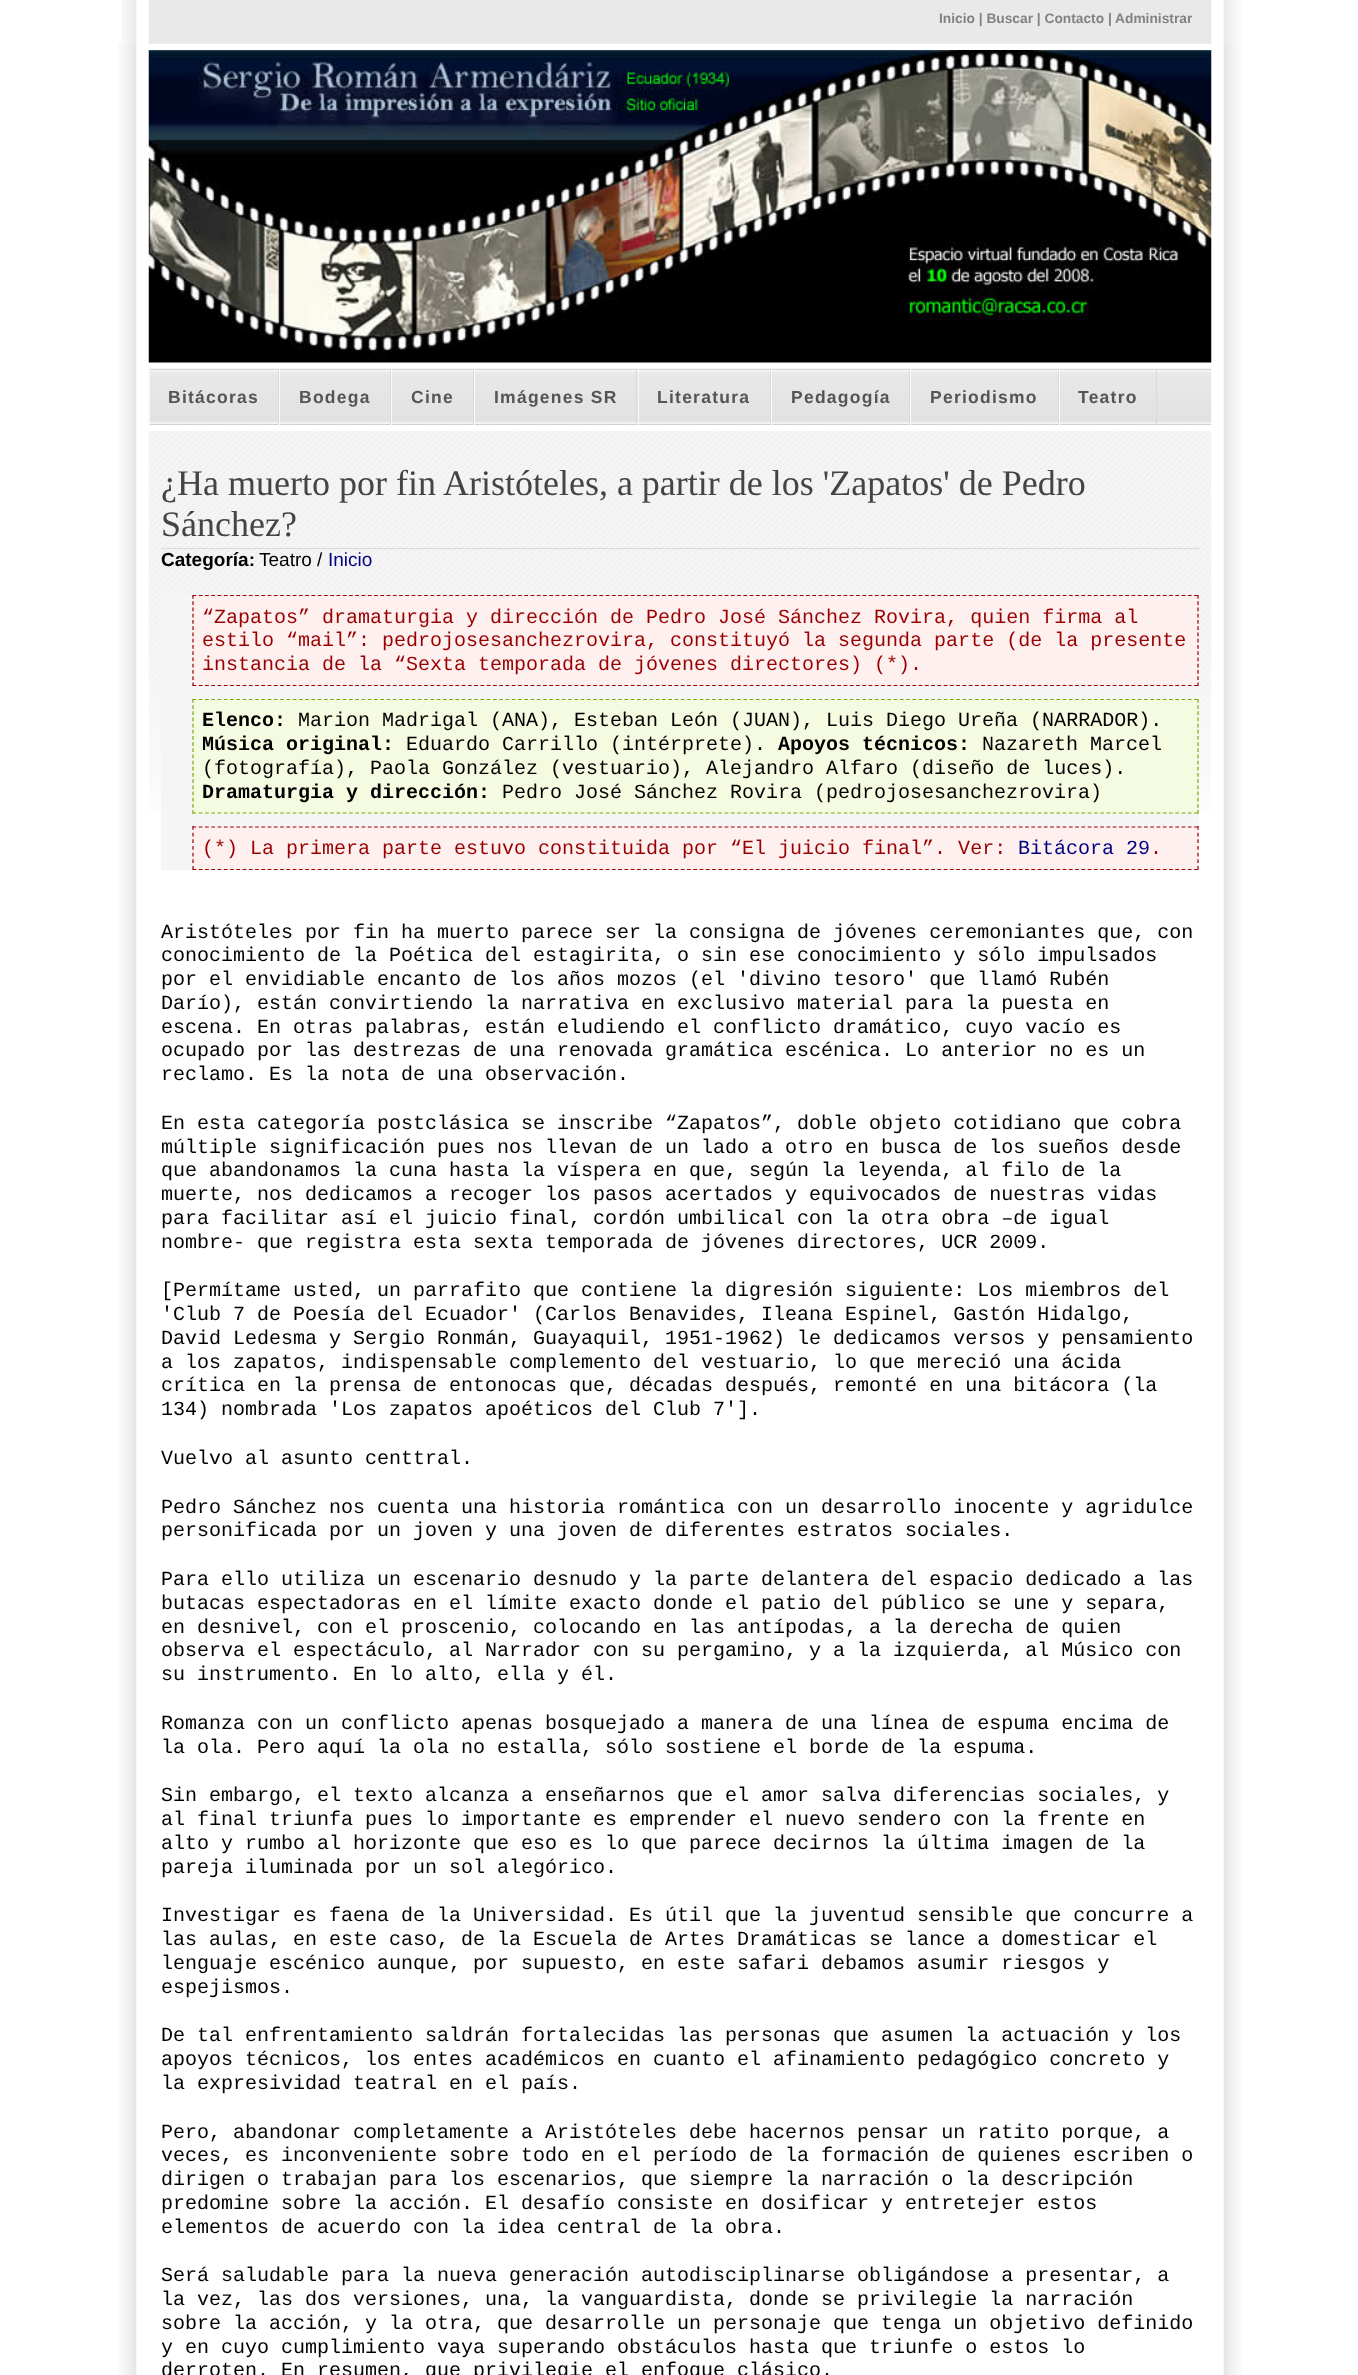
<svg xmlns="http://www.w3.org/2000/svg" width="1358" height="2375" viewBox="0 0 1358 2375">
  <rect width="100%" height="100%" fill="#fff"/>
  <image x="118" y="44" width="1124" height="2331" href="img/1.png"/>
  <image x="121" y="0" width="1120" height="44" href="img/2.png"/>
  <image x="148" y="50" width="1064" height="313" href="img/3.png"/>
  <image x="148" y="368" width="1064" height="57" href="img/4.png"/>
  <path d="M278 369h1v56H278z" fill="#dadada"/>
  <path d="M149 369h1v56H149z" fill="#fafafa"/>
  <path d="M390 369h1v56H390z" fill="#dadada"/>
  <path d="M279 369h1v56H279z" fill="#fafafa"/>
  <path d="M473 369h1v56H473z" fill="#dadada"/>
  <path d="M391 369h1v56H391z" fill="#fafafa"/>
  <path d="M636 369h1v56H636z" fill="#dadada"/>
  <path d="M474 369h1v56H474z" fill="#fafafa"/>
  <path d="M770 369h1v56H770z" fill="#dadada"/>
  <path d="M638 369h1v56H638z" fill="#fafafa"/>
  <path d="M909 369h1v56H909z" fill="#dadada"/>
  <path d="M771 369h1v56H771z" fill="#fafafa"/>
  <path d="M1058 369h1v56H1058z" fill="#dadada"/>
  <path d="M910 369h1v56H910z" fill="#fafafa"/>
  <path d="M1156 369h1v56H1156z" fill="#dadada"/>
  <path d="M1059 369h1v56H1059z" fill="#fafafa"/>
  <image x="148" y="431" width="1064" height="380" href="img/5.png"/>
  <path d="M161 548h1038v1H161z" fill="#dadada"/>
  <path d="M161 595h1038v275H161z" fill="#f5f5f5"/>
  <path d="M193 595h1006v91H193z" fill="#fff0f0"/>
  <path d="M192.5 595.5H1199" fill="none" stroke="#900" stroke-width="1.2" stroke-dasharray="3.75 2.51"/>
  <path d="M1198 595V686" fill="none" stroke="#900" stroke-width="1.2" stroke-dasharray="3.75 2.5"/>
  <path d="M192.5 685.5H1199" fill="none" stroke="#900" stroke-width="1.2" stroke-dasharray="3.75 2.51"/>
  <path d="M193 595V686" fill="none" stroke="#900" stroke-width="1.2" stroke-dasharray="3.75 2.5"/>
  <path d="M193 699h1006v115H193z" fill="#f5fbe1"/>
  <path d="M192.5 699.5H1199" fill="none" stroke="#7ba813" stroke-width="1.2" stroke-dasharray="3.75 2.51"/>
  <path d="M1198 699V814" fill="none" stroke="#7ba813" stroke-width="1.2" stroke-dasharray="3.75 2.42"/>
  <path d="M192.5 813H1199" fill="none" stroke="#7ba813" stroke-width="1.2" stroke-dasharray="3.75 2.51"/>
  <path d="M193 699V814" fill="none" stroke="#7ba813" stroke-width="1.2" stroke-dasharray="3.75 2.42"/>
  <path d="M193 826h1006v44H193z" fill="#fff0f0"/>
  <path d="M192.5 827H1199" fill="none" stroke="#900" stroke-width="1.2" stroke-dasharray="3.75 2.51"/>
  <path d="M1198 826V870" fill="none" stroke="#900" stroke-width="1.2" stroke-dasharray="3.75 2.91"/>
  <path d="M192.5 869.5H1199" fill="none" stroke="#900" stroke-width="1.2" stroke-dasharray="3.75 2.51"/>
  <path d="M193 826V870" fill="none" stroke="#900" stroke-width="1.2" stroke-dasharray="3.75 2.91"/>
  <text x="939" y="23" font-family="Liberation Sans" font-size="13.75" font-weight="bold" fill="#838181">Inicio | Buscar | Contacto | Administrar</text>
  <g font-family="Liberation Sans" font-size="17.5" font-weight="bold" letter-spacing="1.25" fill="#555">
    <text x="168" y="403">Bitácoras</text>
    <text x="299" y="403">Bodega</text>
    <text x="411" y="403">Cine</text>
    <text x="494" y="403">Imágenes SR</text>
    <text x="657" y="403">Literatura</text>
    <text x="791" y="403">Pedagogía</text>
    <text x="930" y="403">Periodismo</text>
    <text x="1078" y="403">Teatro</text>
  </g>
  <g font-family="Liberation Serif" font-size="36" fill="#444">
    <text x="161" y="495">¿Ha muerto por fin Aristóteles, a partir de los 'Zapatos' de Pedro</text>
    <text x="161" y="536">Sánchez?</text>
  </g>
  <text x="161" y="566" font-family="Liberation Sans" font-size="19" font-weight="bold" fill="#000">Categoría:</text>
  <text x="259" y="566" font-family="Liberation Sans" font-size="19" fill="#000">Teatro /</text>
  <text x="328" y="566" font-family="Liberation Sans" font-size="19" fill="#000080">Inicio</text>
  <g font-family="Liberation Mono" font-size="20" fill="#900">
    <text x="202" y="623">“Zapatos” dramaturgia y dirección de Pedro José Sánchez Rovira, quien firma al</text>
    <text x="202" y="646">estilo “mail”: pedrojosesanchezrovira, constituyó la segunda parte (de la presente</text>
    <text x="202" y="670">instancia de la “Sexta temporada de jóvenes directores) (*).</text>
  </g>
  <text x="202" y="726" font-family="Liberation Mono" font-size="20" font-weight="bold" fill="#000">Elenco:</text>
  <text x="298" y="726" font-family="Liberation Mono" font-size="20" fill="#000">Marion Madrigal (ANA), Esteban León (JUAN), Luis Diego Ureña (NARRADOR).</text>
  <text x="202" y="750" font-family="Liberation Mono" font-size="20" font-weight="bold" fill="#000">Música original:</text>
  <text x="406" y="750" font-family="Liberation Mono" font-size="20" fill="#000">Eduardo Carrillo (intérprete).</text>
  <text x="778" y="750" font-family="Liberation Mono" font-size="20" font-weight="bold" fill="#000">Apoyos técnicos:</text>
  <g font-family="Liberation Mono" font-size="20" fill="#000">
    <text x="982" y="750">Nazareth Marcel</text>
    <text x="202" y="774">(fotografía), Paola González (vestuario), Alejandro Alfaro (diseño de luces).</text>
  </g>
  <text x="202" y="798" font-family="Liberation Mono" font-size="20" font-weight="bold" fill="#000">Dramaturgia y dirección:</text>
  <text x="502" y="798" font-family="Liberation Mono" font-size="20" fill="#000">Pedro José Sánchez Rovira (pedrojosesanchezrovira)</text>
  <text x="202" y="854" font-family="Liberation Mono" font-size="20" fill="#900">(*) La primera parte estuvo constituida por “El juicio final”. Ver:</text>
  <text x="1018" y="854" font-family="Liberation Mono" font-size="20" fill="#000080">Bitácora 29</text>
  <text x="1150" y="854" font-family="Liberation Mono" font-size="20" fill="#900">.</text>
  <g font-family="Liberation Mono" font-size="20" fill="#000">
    <text x="161" y="938">Aristóteles por fin ha muerto parece ser la consigna de jóvenes ceremoniantes que, con</text>
    <text x="161" y="961">conocimiento de la Poética del estagirita, o sin ese conocimiento y sólo impulsados</text>
    <text x="161" y="985">por el envidiable encanto de los años mozos (el 'divino tesoro' que llamó Rubén</text>
    <text x="161" y="1009">Darío), están convirtiendo la narrativa en exclusivo material para la puesta en</text>
    <text x="161" y="1033">escena. En otras palabras, están eludiendo el conflicto dramático, cuyo vacío es</text>
    <text x="161" y="1056">ocupado por las destrezas de una renovada gramática escénica. Lo anterior no es un</text>
    <text x="161" y="1080">reclamo. Es la nota de una observación.</text>
    <text x="161" y="1129">En esta categoría postclásica se inscribe “Zapatos”, doble objeto cotidiano que cobra</text>
    <text x="161" y="1153">múltiple significación pues nos llevan de un lado a otro en busca de los sueños desde</text>
    <text x="161" y="1176">que abandonamos la cuna hasta la víspera en que, según la leyenda, al filo de la</text>
    <text x="161" y="1200">muerte, nos dedicamos a recoger los pasos acertados y equivocados de nuestras vidas</text>
    <text x="161" y="1224">para facilitar así el juicio final, cordón umbilical con la otra obra –de igual</text>
    <text x="161" y="1248">nombre- que registra esta sexta temporada de jóvenes directores, UCR 2009.</text>
    <text x="161" y="1296">[Permítame usted, un parrafito que contiene la digresión siguiente: Los miembros del</text>
    <text x="161" y="1320">'Club 7 de Poesía del Ecuador' (Carlos Benavides, Ileana Espinel, Gastón Hidalgo,</text>
    <text x="161" y="1344">David Ledesma y Sergio Ronmán, Guayaquil, 1951-1962) le dedicamos versos y pensamiento</text>
    <text x="161" y="1368">a los zapatos, indispensable complemento del vestuario, lo que mereció una ácida</text>
    <text x="161" y="1391">crítica en la prensa de entonocas que, décadas después, remonté en una bitácora (la</text>
    <text x="161" y="1415">134) nombrada 'Los zapatos apoéticos del Club 7'].</text>
    <text x="161" y="1464">Vuelvo al asunto centtral.</text>
    <text x="161" y="1513">Pedro Sánchez nos cuenta una historia romántica con un desarrollo inocente y agridulce</text>
    <text x="161" y="1536">personificada por un joven y una joven de diferentes estratos sociales.</text>
    <text x="161" y="1585">Para ello utiliza un escenario desnudo y la parte delantera del espacio dedicado a las</text>
    <text x="161" y="1609">butacas espectadoras en el límite exacto donde el patio del público se une y separa,</text>
    <text x="161" y="1633">en desnivel, con el proscenio, colocando en las antípodas, a la derecha de quien</text>
    <text x="161" y="1656">observa el espectáculo, al Narrador con su pergamino, y a la izquierda, al Músico con</text>
    <text x="161" y="1680">su instrumento. En lo alto, ella y él.</text>
    <text x="161" y="1729">Romanza con un conflicto apenas bosquejado a manera de una línea de espuma encima de</text>
    <text x="161" y="1753">la ola. Pero aquí la ola no estalla, sólo sostiene el borde de la espuma.</text>
    <text x="161" y="1801">Sin embargo, el texto alcanza a enseñarnos que el amor salva diferencias sociales, y</text>
    <text x="161" y="1825">al final triunfa pues lo importante es emprender el nuevo sendero con la frente en</text>
    <text x="161" y="1849">alto y rumbo al horizonte que eso es lo que parece decirnos la última imagen de la</text>
    <text x="161" y="1873">pareja iluminada por un sol alegórico.</text>
    <text x="161" y="1921">Investigar es faena de la Universidad. Es útil que la juventud sensible que concurre a</text>
    <text x="161" y="1945">las aulas, en este caso, de la Escuela de Artes Dramáticas se lance a domesticar el</text>
    <text x="161" y="1969">lenguaje escénico aunque, por supuesto, en este safari debamos asumir riesgos y</text>
    <text x="161" y="1993">espejismos.</text>
    <text x="161" y="2041">De tal enfrentamiento saldrán fortalecidas las personas que asumen la actuación y los</text>
    <text x="161" y="2065">apoyos técnicos, los entes académicos en cuanto el afinamiento pedagógico concreto y</text>
    <text x="161" y="2089">la expresividad teatral en el país.</text>
    <text x="161" y="2138">Pero, abandonar completamente a Aristóteles debe hacernos pensar un ratito porque, a</text>
    <text x="161" y="2161">veces, es inconveniente sobre todo en el período de la formación de quienes escriben o</text>
    <text x="161" y="2185">dirigen o trabajan para los escenarios, que siempre la narración o la descripción</text>
    <text x="161" y="2209">predomine sobre la acción. El desafío consiste en dosificar y entretejer estos</text>
    <text x="161" y="2233">elementos de acuerdo con la idea central de la obra.</text>
    <text x="161" y="2281">Será saludable para la nueva generación autodisciplinarse obligándose a presentar, a</text>
    <text x="161" y="2305">la vez, las dos versiones, una, la vanguardista, donde se privilegie la narración</text>
    <text x="161" y="2329">sobre la acción, y la otra, que desarrolle un personaje que tenga un objetivo definido</text>
    <text x="161" y="2353">y en cuyo cumplimiento vaya superando obstáculos hasta que triunfe o estos lo</text>
    <text x="161" y="2376">derroten. En resumen, que privilegie el enfoque clásico.</text>
  </g>
</svg>
